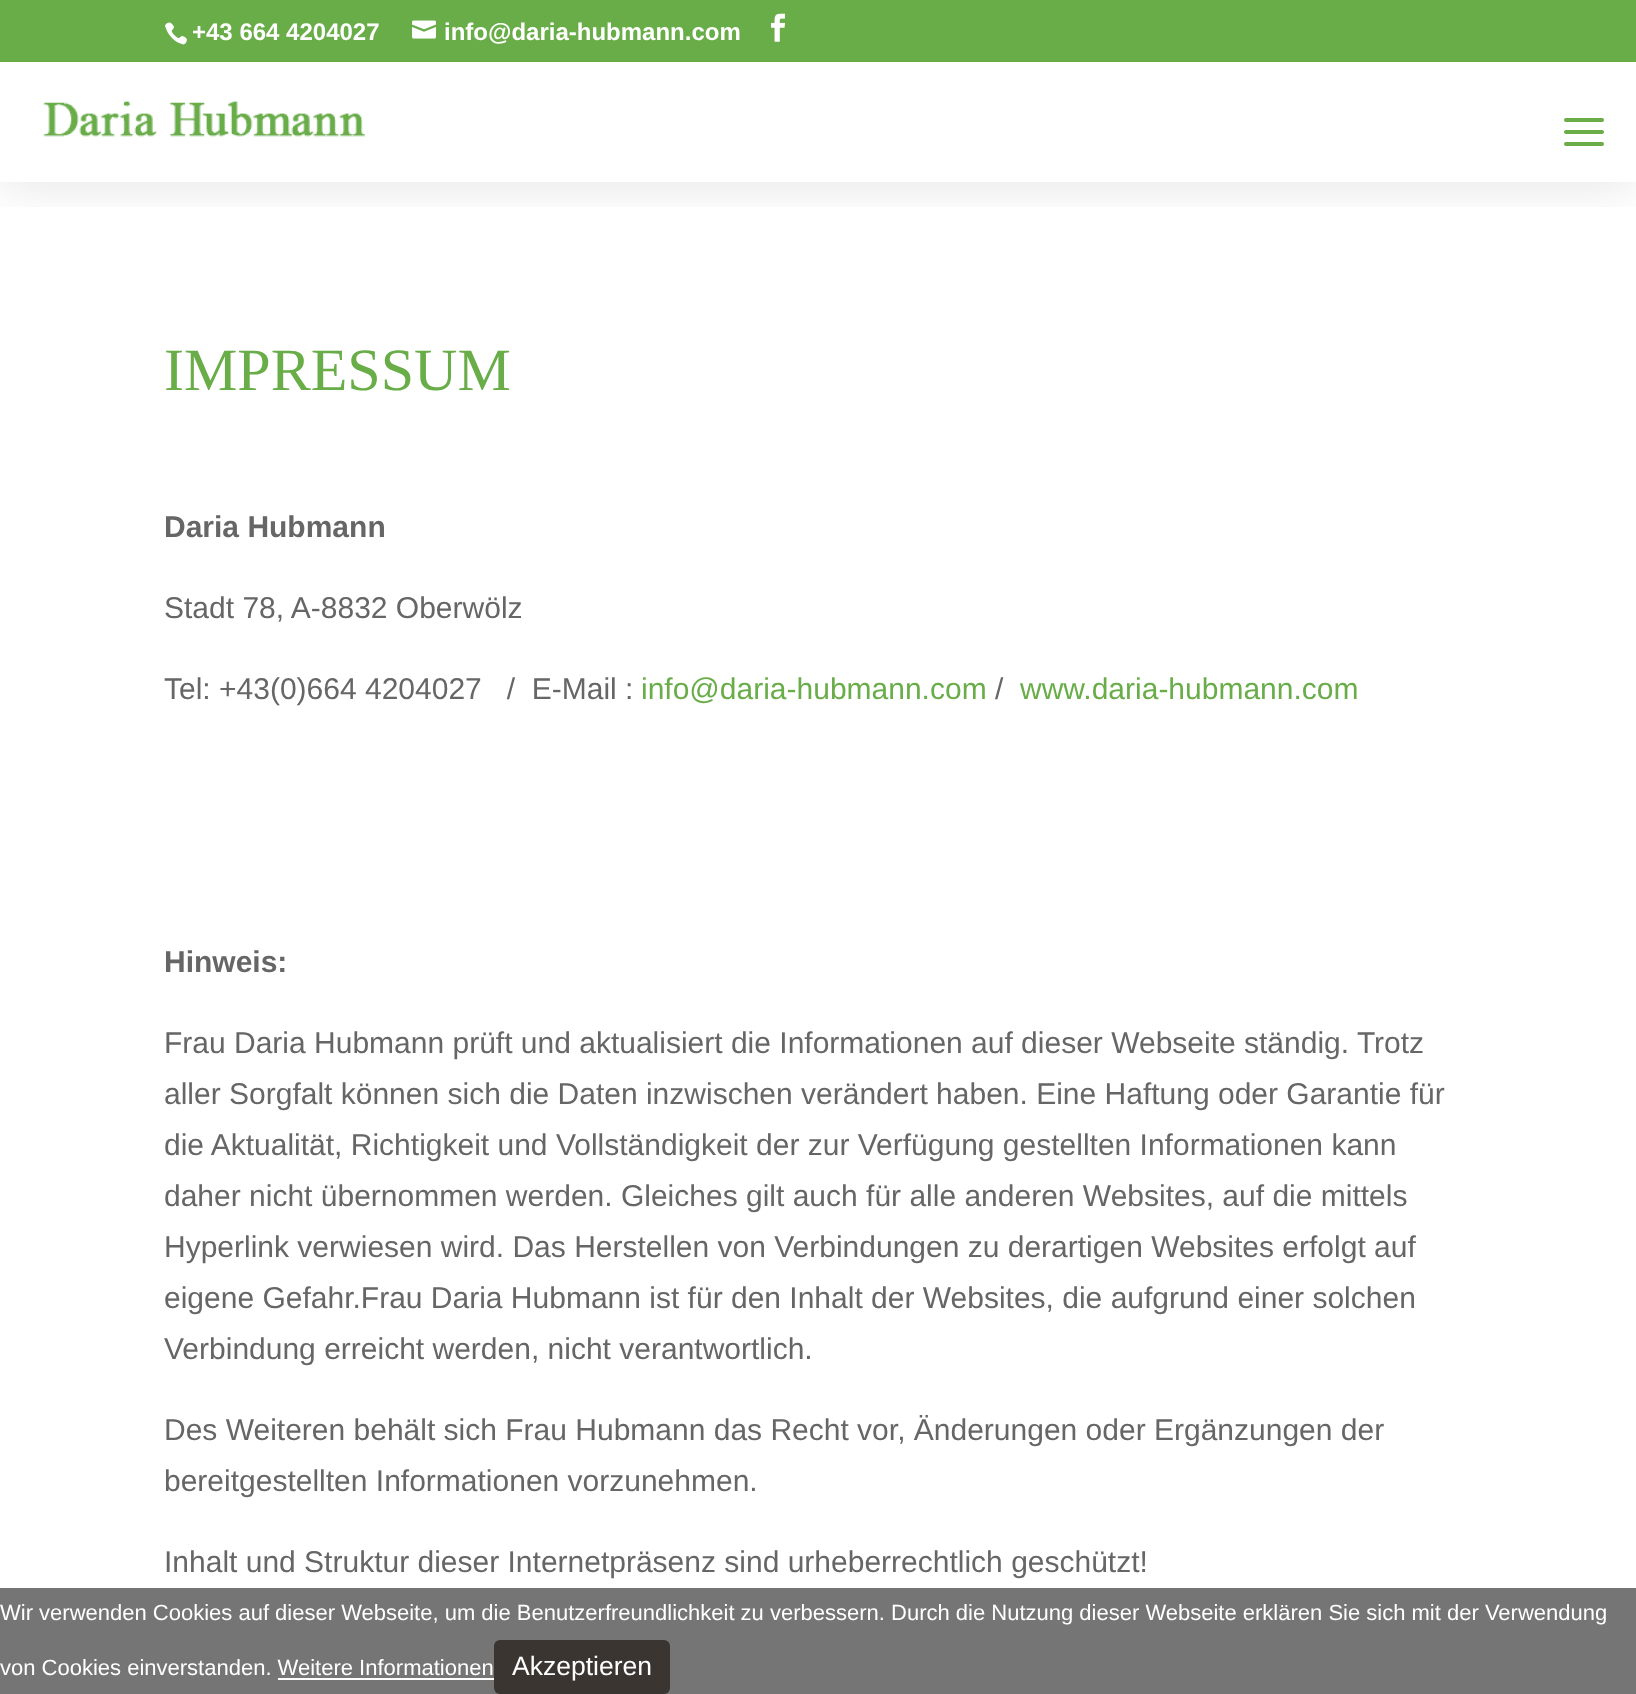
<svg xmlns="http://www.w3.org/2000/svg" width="1636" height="1694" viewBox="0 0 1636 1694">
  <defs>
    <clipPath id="clip1"><path d="M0 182h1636v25H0z"/></clipPath>
  </defs>
  <rect width="100%" height="100%" fill="#fff"/>
  <g clip-path="url(#clip1)">
    <path d="M0 66h1636v120H0z" fill="#0000001a" filter="blur(25px)"/>
  </g>
  <image x="43" y="101" width="322" height="36" href="img/1.png"/>
  <image x="1564" y="118" width="40" height="28" href="img/2.png"/>
  <path d="M0 0h1636v62H0z" fill="#69ad49"/>
  <image x="165" y="22" width="22" height="23" href="img/3.png"/>
  <image x="412" y="20" width="24" height="19" href="img/4.png"/>
  <image x="771" y="13" width="15" height="29" href="img/5.png"/>
  <path d="M0 1588h1636v106H0z" fill="#757575"/>
  <path d="M278 1678h216v2H278z" fill="#fff"/>
  <rect x="494" y="1640" width="176" height="54" rx="6" fill="#3a3530"/>
  <g font-family="Liberation Sans" font-size="24" font-weight="bold" fill="#fff">
    <text x="192" y="40">+43 664 4204027</text>
    <text x="444" y="40">info@daria-hubmann.com</text>
  </g>
  <text x="164" y="390" font-family="Liberation Serif" font-size="60" fill="#69ad49">IMPRESSUM</text>
  <text x="164" y="537" font-family="Liberation Sans" font-size="30" font-weight="bold" fill="#666">Daria Hubmann</text>
  <g font-family="Liberation Sans" font-size="30" fill="#666">
    <text x="164" y="618">Stadt 78, A-8832 Oberwölz</text>
    <text x="164" y="699" xml:space="preserve">Tel: +43(0)664 4204027   /  E-Mail :</text>
  </g>
  <text x="641" y="699" font-family="Liberation Sans" font-size="30" fill="#69ad49">info@daria-hubmann.com</text>
  <text x="995" y="699" font-family="Liberation Sans" font-size="30" fill="#666">/</text>
  <text x="1020" y="699" font-family="Liberation Sans" font-size="30" fill="#69ad49">www.daria-hubmann.com</text>
  <text x="164" y="972" font-family="Liberation Sans" font-size="30" font-weight="bold" fill="#666">Hinweis:</text>
  <g font-family="Liberation Sans" font-size="30" fill="#666">
    <text x="164" y="1053">Frau Daria Hubmann prüft und aktualisiert die Informationen auf dieser Webseite ständig. Trotz</text>
    <text x="164" y="1104">aller Sorgfalt können sich die Daten inzwischen verändert haben. Eine Haftung oder Garantie für</text>
    <text x="164" y="1155">die Aktualität, Richtigkeit und Vollständigkeit der zur Verfügung gestellten Informationen kann</text>
    <text x="164" y="1206">daher nicht übernommen werden. Gleiches gilt auch für alle anderen Websites, auf die mittels</text>
    <text x="164" y="1257">Hyperlink verwiesen wird. Das Herstellen von Verbindungen zu derartigen Websites erfolgt auf</text>
    <text x="164" y="1308">eigene Gefahr.Frau Daria Hubmann ist für den Inhalt der Websites, die aufgrund einer solchen</text>
    <text x="164" y="1359">Verbindung erreicht werden, nicht verantwortlich.</text>
    <text x="164" y="1440">Des Weiteren behält sich Frau Hubmann das Recht vor, Änderungen oder Ergänzungen der</text>
    <text x="164" y="1491">bereitgestellten Informationen vorzunehmen.</text>
    <text x="164" y="1572">Inhalt und Struktur dieser Internetpräsenz sind urheberrechtlich geschützt!</text>
  </g>
  <g font-family="Liberation Sans" font-size="22" fill="#fff">
    <text x="0" y="1620">Wir verwenden Cookies auf dieser Webseite, um die Benutzerfreundlichkeit zu verbessern. Durch die Nutzung dieser Webseite erklären Sie sich mit der Verwendung</text>
    <text x="0" y="1675">von Cookies einverstanden. Weitere Informationen</text>
  </g>
  <text x="512" y="1675" font-family="Liberation Sans" font-size="26.5" fill="#fff">Akzeptieren</text>
</svg>
